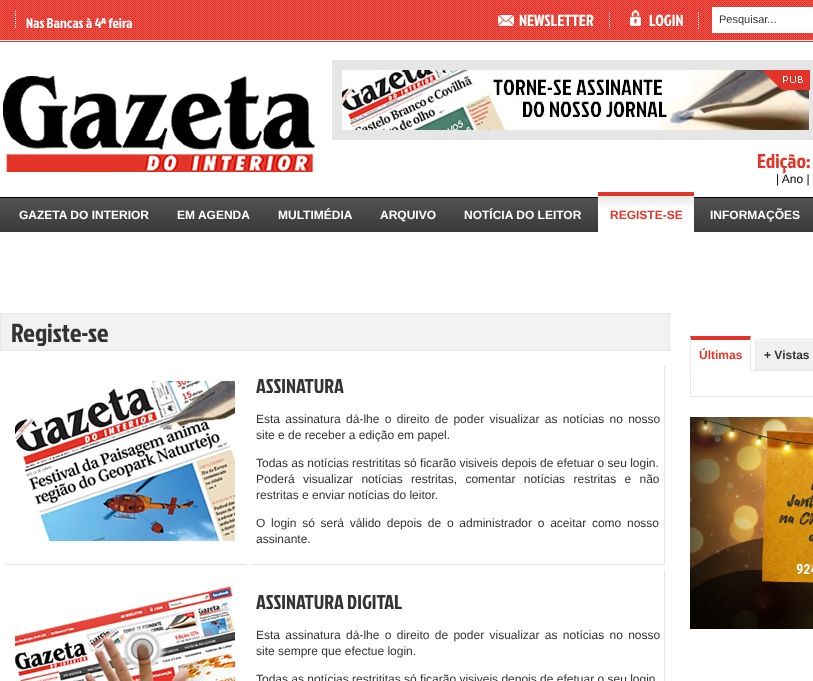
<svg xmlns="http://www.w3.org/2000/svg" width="813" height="681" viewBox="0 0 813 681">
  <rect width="100%" height="100%" fill="#fff"/>
  <image x="0" y="0" width="813" height="42" href="img/1.png"/>
  <image x="15" y="11" width="1" height="17" href="img/2.png"/>
  <image x="498" y="15" width="16" height="11" href="img/3.png"/>
  <image x="609" y="12" width="1" height="17" href="img/4.png"/>
  <image x="630" y="10" width="11" height="16" href="img/5.png"/>
  <image x="698" y="12" width="1" height="17" href="img/6.png"/>
  <path d="M712 7h101v26H712z" fill="#fff"/>
  <image x="3" y="76" width="312" height="96" href="img/7.png"/>
  <path d="M332 60h481v80H332z" fill="#e6e6e6"/>
  <image x="342" y="70" width="467" height="60" href="img/8.png"/>
  <image x="762" y="70" width="48" height="20" href="img/9.png"/>
  <image x="0" y="197" width="813" height="35" href="img/10.png"/>
  <path d="M598 207h96v25H598z" fill="#fff"/>
  <image x="598" y="192" width="96" height="15" href="img/11.png"/>
  <path d="M0.5 313.5h669v37H0.5z" fill="#f2f2f2" stroke="#e8e8e8"/>
  <path d="M5 564h241v1H5z" fill="#e4e4e4"/>
  <image x="15" y="379" width="220" height="168" href="img/12.png"/>
  <path d="M664 366h1v199H664z" fill="#e4e4e4"/>
  <path d="M251 564h414v1H251z" fill="#e4e4e4"/>
  <image x="15" y="583" width="220" height="98" href="img/13.png"/>
  <path d="M664 570h1v111H664z" fill="#e4e4e4"/>
  <path d="M690 336H751L750 340H691Z" fill="#e43429"/>
  <path d="M690.5 370.5h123v26H690.5z" fill="none" stroke="#e8e8e8"/>
  <path d="M751 336V371L750 370V340Z" fill="#e8e8e8"/>
  <path d="M690 370h61v1H690z" fill="#fff"/>
  <path d="M690 371V336L691 340V370Z" fill="#e8e8e8"/>
  <path d="M756 341h57v29H756z" fill="#f0f0f0"/>
  <path d="M755.5 339.5h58v31H755.5z" fill="none" stroke="#e8e8e8"/>
  <image x="690" y="417" width="123" height="212" href="img/14.png"/>
  <text x="26" y="28" font-family="Jockey One" font-size="14" fill="#fff">Nas Bancas à 4ª feira</text>
  <g font-family="Jockey One" font-size="16" fill="#fff">
    <text x="519" y="26">NEWSLETTER</text>
    <text x="649" y="26">LOGIN</text>
  </g>
  <text x="719" y="23" font-family="Liberation Sans" font-size="11" fill="#333">Pesquisar...</text>
  <text x="757" y="168" font-family="Jockey One" font-size="20" fill="#e43429">Edição:</text>
  <text x="776" y="183" font-family="Liberation Sans" font-size="12" fill="#000">| Ano |</text>
  <g font-family="Liberation Sans" font-size="12" font-weight="bold" fill="#fff">
    <text x="19" y="219">GAZETA DO INTERIOR</text>
    <text x="177" y="219">EM AGENDA</text>
    <text x="278" y="219">MULTIMÉDIA</text>
    <text x="380" y="219">ARQUIVO</text>
    <text x="464" y="219">NOTÍCIA DO LEITOR</text>
  </g>
  <text x="610" y="219" font-family="Liberation Sans" font-size="12" font-weight="bold" fill="#e43429">REGISTE-SE</text>
  <text x="710" y="219" font-family="Liberation Sans" font-size="12" font-weight="bold" fill="#fff">INFORMAÇÕES</text>
  <text x="11" y="342" font-family="Jockey One" font-size="26" fill="#333">Registe-se</text>
  <text x="256" y="393" font-family="Jockey One" font-size="20" fill="#333">ASSINATURA</text>
  <g font-family="Liberation Sans" font-size="12" fill="#333">
    <text x="256" y="423" word-spacing="2">Esta assinatura dá-lhe o direito de poder visualizar as notícias no nosso</text>
    <text x="256" y="439">site e de receber a edição em papel.</text>
    <text x="256" y="467">Todas as notícias restrititas só ficarão visiveis depois de efetuar o seu login.</text>
    <text x="256" y="483" word-spacing="5">Poderá visualizar notícias restritas, comentar notícias restritas e não</text>
    <text x="256" y="499">restritas e enviar notícias do leitor.</text>
    <text x="256" y="527" word-spacing="2.4">O login só será válido depois de o administrador o aceitar como nosso</text>
    <text x="256" y="543">assinante.</text>
  </g>
  <text x="256" y="609" font-family="Jockey One" font-size="20" fill="#333">ASSINATURA DIGITAL</text>
  <g font-family="Liberation Sans" font-size="12" fill="#333">
    <text x="256" y="639" word-spacing="2">Esta assinatura dá-lhe o direito de poder visualizar as notícias no nosso</text>
    <text x="256" y="655">site sempre que efectue login.</text>
    <text x="256" y="683">Todas as notícias restrititas só ficarão visiveis depois de efetuar o seu login</text>
  </g>
  <text x="699" y="359" font-family="Liberation Sans" font-size="12" font-weight="bold" fill="#e43429">Últimas</text>
  <text x="764" y="359" font-family="Liberation Sans" font-size="12" font-weight="bold" fill="#333">+ Vistas</text>
</svg>
